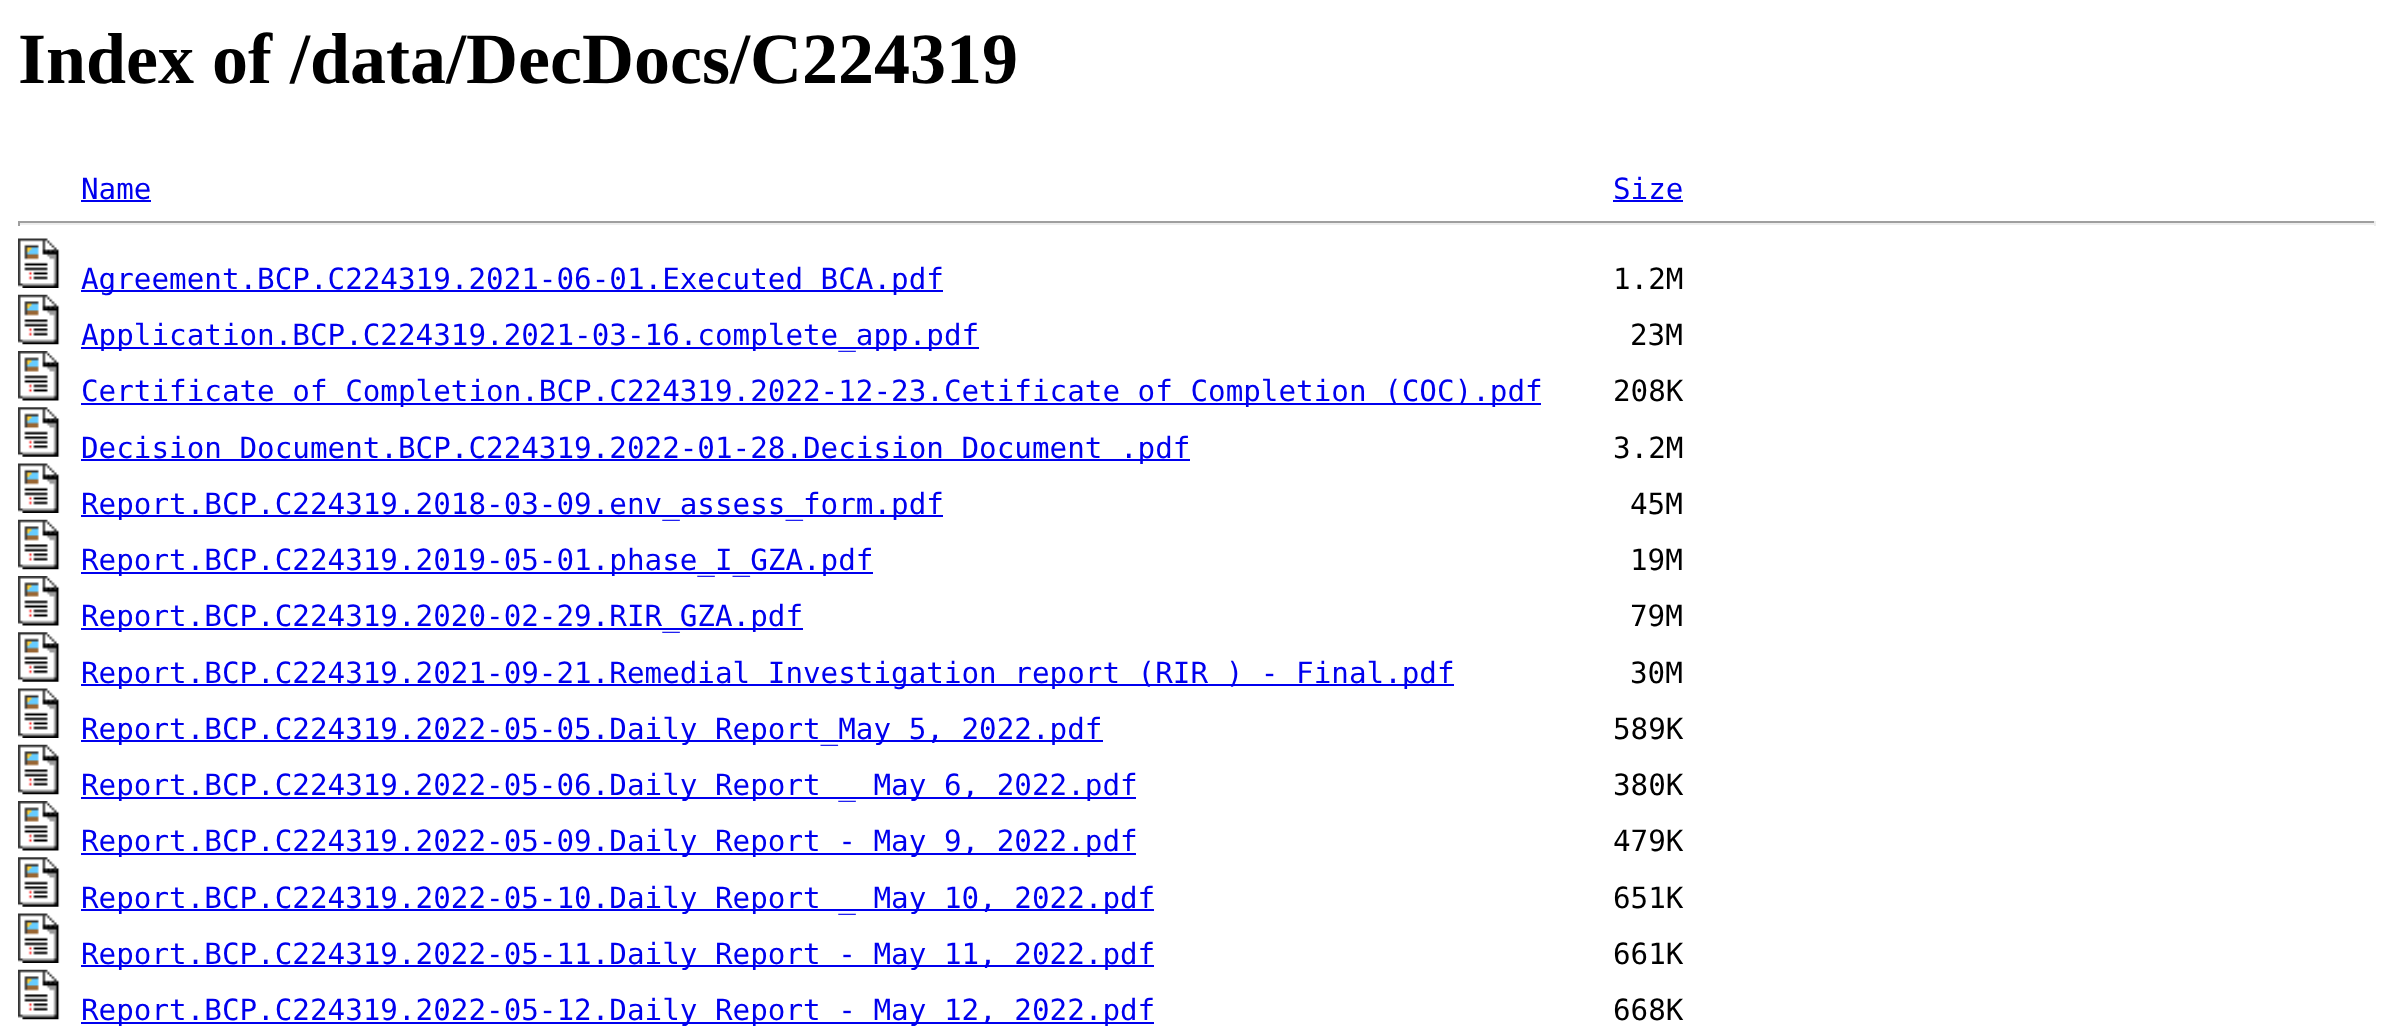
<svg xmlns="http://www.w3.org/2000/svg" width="2392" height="1026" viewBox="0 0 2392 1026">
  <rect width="100%" height="100%" fill="#fff"/>
  <path d="M81 200h70v2H81z" fill="#00e"/>
  <path d="M1613 200h70v2H1613z" fill="#00e"/>
  <path d="M18 221h2358v2H18z" fill="#9f9f9f"/>
  <path d="M2374 221h2v5H2374z" fill="#eee"/>
  <path d="M18 223h2358v2H18z" fill="#eee"/>
  <path d="M18 221h2v5H18z" fill="#9f9f9f"/>
  <image x="18" y="238" width="42" height="50" href="img/1.png"/>
  <path d="M81 290h862v2H81z" fill="#00e"/>
  <image x="18" y="294" width="42" height="51" href="img/2.png"/>
  <path d="M81 347h898v2H81z" fill="#00e"/>
  <image x="18" y="351" width="42" height="50" href="img/3.png"/>
  <path d="M81 403h1460v2H81z" fill="#00e"/>
  <image x="18" y="407" width="42" height="50" href="img/4.png"/>
  <path d="M81 459h1109v2H81z" fill="#00e"/>
  <image x="18" y="463" width="42" height="50" href="img/1.png"/>
  <path d="M81 515h862v2H81z" fill="#00e"/>
  <image x="18" y="519" width="42" height="51" href="img/2.png"/>
  <path d="M81 572h792v2H81z" fill="#00e"/>
  <image x="18" y="576" width="42" height="50" href="img/5.png"/>
  <path d="M81 628h722v2H81z" fill="#00e"/>
  <image x="18" y="632" width="42" height="50" href="img/4.png"/>
  <path d="M81 684h1373v2H81z" fill="#00e"/>
  <image x="18" y="688" width="42" height="50" href="img/1.png"/>
  <path d="M81 740h1022v2H81z" fill="#00e"/>
  <image x="18" y="744" width="42" height="51" href="img/2.png"/>
  <path d="M81 797h1055v2H81z" fill="#00e"/>
  <image x="18" y="801" width="42" height="50" href="img/6.png"/>
  <path d="M81 853h1055v2H81z" fill="#00e"/>
  <image x="18" y="857" width="42" height="50" href="img/4.png"/>
  <path d="M81 909h1073v2H81z" fill="#00e"/>
  <image x="18" y="913" width="42" height="50" href="img/1.png"/>
  <path d="M81 965h1073v2H81z" fill="#00e"/>
  <image x="18" y="969" width="42" height="51" href="img/2.png"/>
  <path d="M81 1022h1073v2H81z" fill="#00e"/>
  <text x="18" y="83" font-family="Liberation Serif" font-size="72" font-weight="bold" fill="#000">Index of /data/DecDocs/C224319</text>
  <g font-family="DejaVu Sans Mono" font-size="29.25" fill="#00e">
    <text x="81" y="199">Name</text>
    <text x="1613" y="199">Size</text>
    <text x="81" y="289">Agreement.BCP.C224319.2021-06-01.Executed BCA.pdf</text>
  </g>
  <text x="1613" y="289" font-family="DejaVu Sans Mono" font-size="29.25" fill="#000">1.2M</text>
  <text x="81" y="345" font-family="DejaVu Sans Mono" font-size="29.25" fill="#00e">Application.BCP.C224319.2021-03-16.complete_app.pdf</text>
  <text x="1630" y="345" font-family="DejaVu Sans Mono" font-size="29.25" fill="#000">23M</text>
  <text x="81" y="401" font-family="DejaVu Sans Mono" font-size="29.25" fill="#00e">Certificate of Completion.BCP.C224319.2022-12-23.Cetificate of Completion (COC).pdf</text>
  <text x="1613" y="401" font-family="DejaVu Sans Mono" font-size="29.25" fill="#000">208K</text>
  <text x="81" y="458" font-family="DejaVu Sans Mono" font-size="29.25" fill="#00e">Decision Document.BCP.C224319.2022-01-28.Decision Document .pdf</text>
  <text x="1613" y="458" font-family="DejaVu Sans Mono" font-size="29.25" fill="#000">3.2M</text>
  <text x="81" y="514" font-family="DejaVu Sans Mono" font-size="29.25" fill="#00e">Report.BCP.C224319.2018-03-09.env_assess_form.pdf</text>
  <text x="1630" y="514" font-family="DejaVu Sans Mono" font-size="29.25" fill="#000">45M</text>
  <text x="81" y="570" font-family="DejaVu Sans Mono" font-size="29.25" fill="#00e">Report.BCP.C224319.2019-05-01.phase_I_GZA.pdf</text>
  <text x="1630" y="570" font-family="DejaVu Sans Mono" font-size="29.25" fill="#000">19M</text>
  <text x="81" y="626" font-family="DejaVu Sans Mono" font-size="29.25" fill="#00e">Report.BCP.C224319.2020-02-29.RIR_GZA.pdf</text>
  <text x="1630" y="626" font-family="DejaVu Sans Mono" font-size="29.25" fill="#000">79M</text>
  <text x="81" y="683" font-family="DejaVu Sans Mono" font-size="29.25" fill="#00e">Report.BCP.C224319.2021-09-21.Remedial Investigation report (RIR ) - Final.pdf</text>
  <text x="1630" y="683" font-family="DejaVu Sans Mono" font-size="29.25" fill="#000">30M</text>
  <text x="81" y="739" font-family="DejaVu Sans Mono" font-size="29.25" fill="#00e">Report.BCP.C224319.2022-05-05.Daily Report_May 5, 2022.pdf</text>
  <text x="1613" y="739" font-family="DejaVu Sans Mono" font-size="29.25" fill="#000">589K</text>
  <text x="81" y="795" font-family="DejaVu Sans Mono" font-size="29.25" fill="#00e">Report.BCP.C224319.2022-05-06.Daily Report _ May 6, 2022.pdf</text>
  <text x="1613" y="795" font-family="DejaVu Sans Mono" font-size="29.25" fill="#000">380K</text>
  <text x="81" y="851" font-family="DejaVu Sans Mono" font-size="29.25" fill="#00e">Report.BCP.C224319.2022-05-09.Daily Report - May 9, 2022.pdf</text>
  <text x="1613" y="851" font-family="DejaVu Sans Mono" font-size="29.25" fill="#000">479K</text>
  <text x="81" y="908" font-family="DejaVu Sans Mono" font-size="29.25" fill="#00e">Report.BCP.C224319.2022-05-10.Daily Report _ May 10, 2022.pdf</text>
  <text x="1613" y="908" font-family="DejaVu Sans Mono" font-size="29.25" fill="#000">651K</text>
  <text x="81" y="964" font-family="DejaVu Sans Mono" font-size="29.25" fill="#00e">Report.BCP.C224319.2022-05-11.Daily Report - May 11, 2022.pdf</text>
  <text x="1613" y="964" font-family="DejaVu Sans Mono" font-size="29.25" fill="#000">661K</text>
  <text x="81" y="1020" font-family="DejaVu Sans Mono" font-size="29.25" fill="#00e">Report.BCP.C224319.2022-05-12.Daily Report - May 12, 2022.pdf</text>
  <text x="1613" y="1020" font-family="DejaVu Sans Mono" font-size="29.25" fill="#000">668K</text>
</svg>
